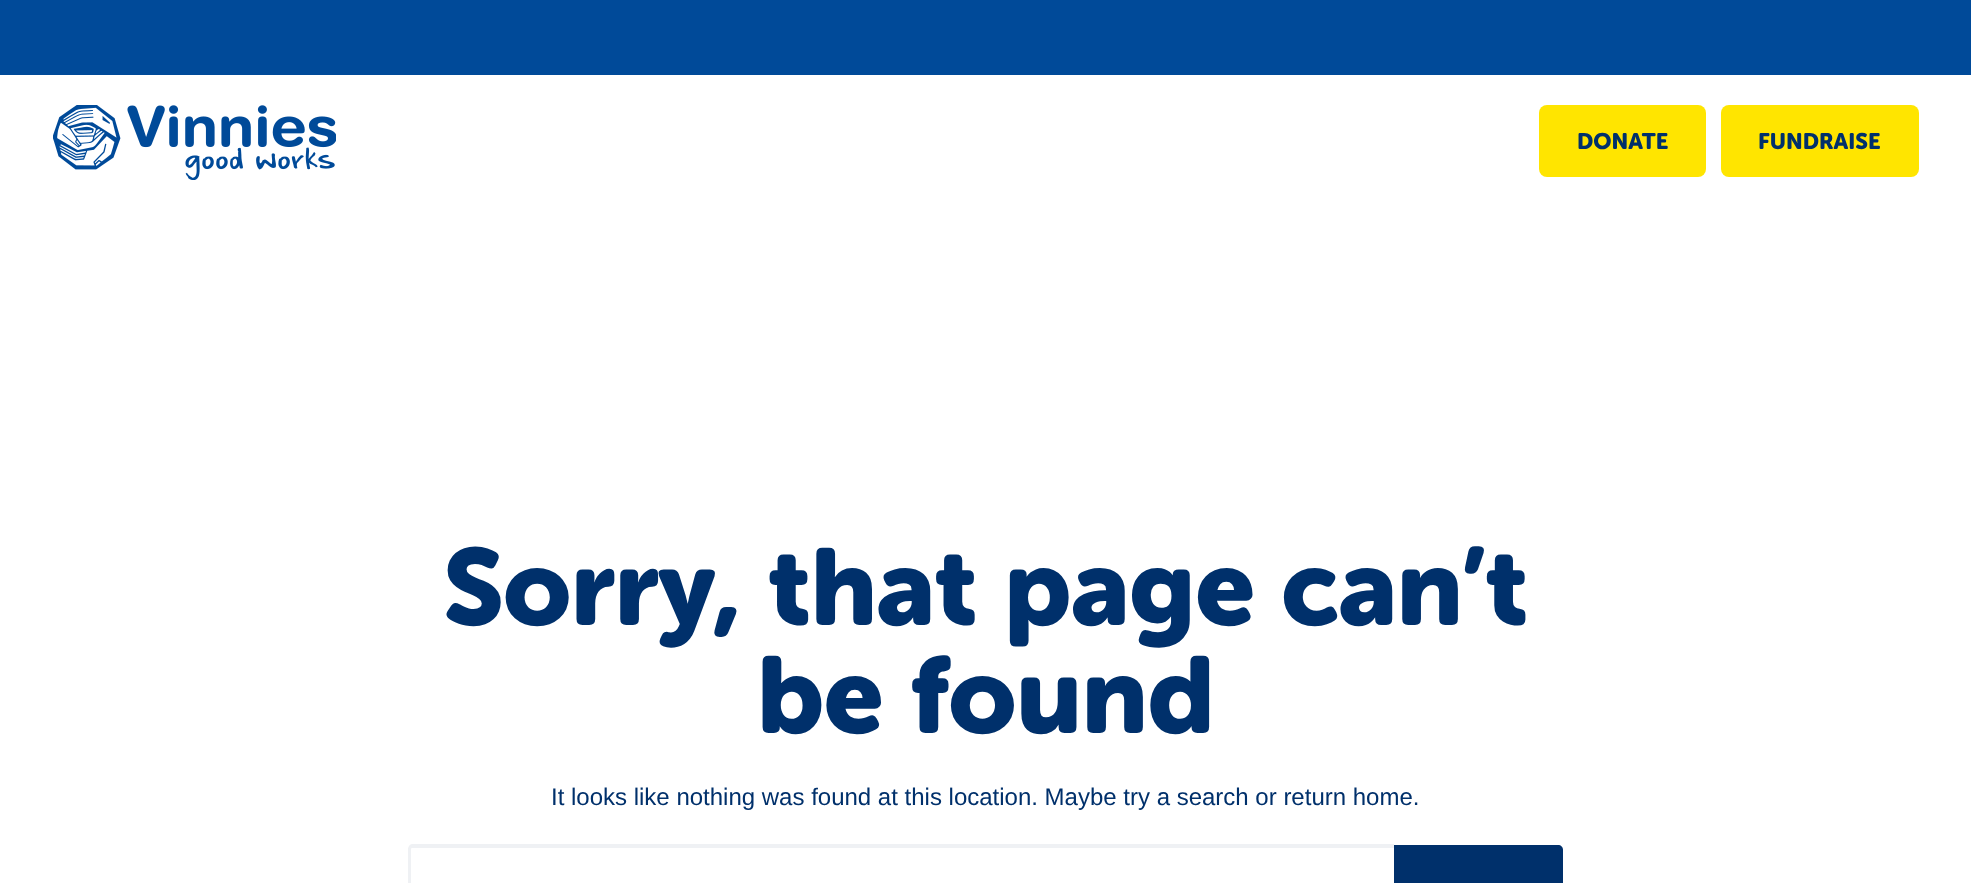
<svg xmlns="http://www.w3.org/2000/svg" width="1971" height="883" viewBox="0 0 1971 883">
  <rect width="100%" height="100%" fill="#fff"/>
  <path d="M0 0h1971v75H0z" fill="#004a99"/>
  <image x="53" y="105" width="283" height="75" href="img/1.png"/>
  <rect x="1539" y="105" width="167" height="72" rx="8" fill="#ffe500"/>
  <rect x="1721" y="105" width="198" height="72" rx="8" fill="#ffe500"/>
  <path d="M412 844H1394V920H412C410 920 408 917 408 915V849C408 847 410 844 412 844ZM412 848H1394V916H412C412 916 411 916 411 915V849C411 848 412 848 412 848Z" fill="#eff1f4" fill-rule="evenodd"/>
  <path d="M1394 845H1558C1561 845 1563 847 1563 850V883C1563 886 1561 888 1558 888H1394Z" fill="#00306b"/>
  <g font-family="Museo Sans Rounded" font-size="22.5" font-weight="bold" fill="#00306b">
    <text x="1577" y="149">DONATE</text>
    <text x="1758" y="149">FUNDRAISE</text>
  </g>
  <g font-family="Museo Sans Rounded" font-size="108" font-weight="bold" fill="#00306b">
    <text x="443" y="625">Sorry, that page can’t</text>
    <text x="757" y="733">be found</text>
  </g>
  <text x="551" y="805" font-family="Liberation Sans" font-size="24" fill="#00306b">It looks like nothing was found at this location. Maybe try a search or return home.</text>
</svg>
